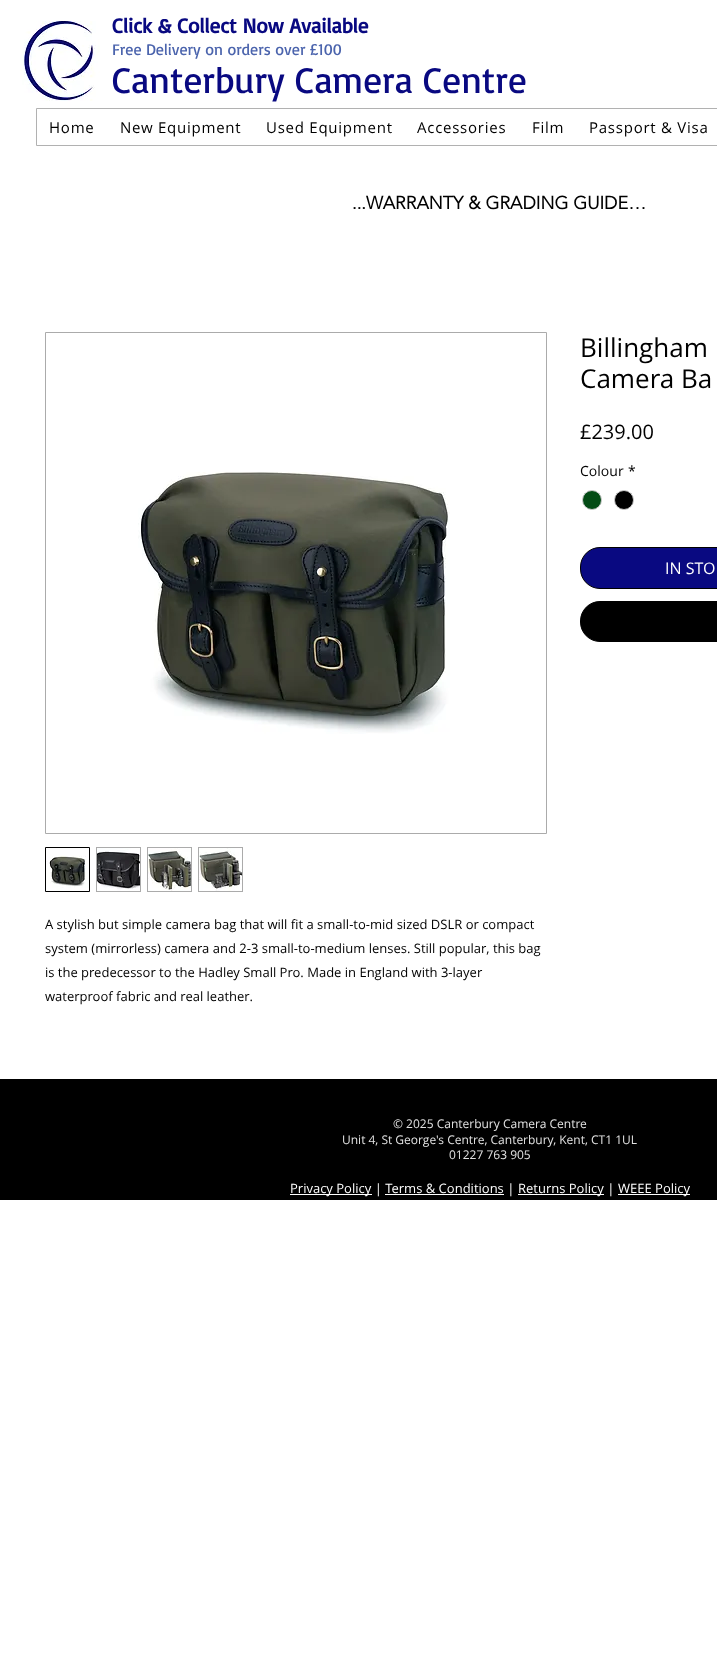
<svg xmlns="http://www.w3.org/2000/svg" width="717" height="1662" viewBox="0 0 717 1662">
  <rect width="100%" height="100%" fill="#fff"/>
  <image x="20" y="21" width="80" height="80" href="img/1.png"/>
  <path d="M36.5 108.5h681v37H36.5z" fill="none" stroke="#b1b1b1"/>
  <circle cx="592" cy="500" r="9.5" fill="#034b15" stroke="#c9c9c9"/>
  <circle cx="624" cy="500" r="9.5" fill="#000" stroke="#c9c9c9"/>
  <rect x="580.5" y="547.5" width="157" height="41" rx="19.5" fill="#090981" stroke="#000"/>
  <rect x="580.5" y="601.5" width="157" height="40" rx="19.5" fill="#000" stroke="#000"/>
  <path d="M45.5 332.5h501v501H45.5z" fill="none" stroke="#ababab"/>
  <image x="138" y="472" width="312" height="262" href="img/2.png"/>
  <path d="M45.5 847.5h44v44H45.5z" fill="none" stroke="#000"/>
  <image x="46" y="848" width="43" height="43" href="img/3.png"/>
  <path d="M96 847h45v45H96z" fill="#ababab"/>
  <image x="97" y="848" width="43" height="43" href="img/4.png"/>
  <path d="M147 847h45v45H147z" fill="#ababab"/>
  <image x="148" y="848" width="43" height="43" href="img/5.png"/>
  <path d="M198 847h45v45H198z" fill="#ababab"/>
  <image x="199" y="848" width="43" height="43" href="img/6.png"/>
  <path d="M0 1079h717v121H0z" fill="#000"/>
  <path d="M290 1194h82v1H290z" fill="#fff"/>
  <path d="M385 1194h119v1H385z" fill="#fff"/>
  <path d="M518 1194h86v1H518z" fill="#fff"/>
  <path d="M618 1194h72v1H618z" fill="#fff"/>
  <text x="112" y="33" font-family="Basic" font-size="21" font-weight="bold" fill="#090981">Click &amp; Collect Now Available</text>
  <text x="112" y="55" font-family="Basic" font-size="16" fill="#4b64ad">Free Delivery on orders over £100</text>
  <text x="112" y="93" font-family="Basic" font-size="37" fill="#090981">Canterbury Camera Centre</text>
  <g font-family="Open Sans" font-size="15" letter-spacing="0.75" fill="#000">
    <text x="49" y="133">Home</text>
    <text x="120" y="133">New Equipment</text>
    <text x="266" y="133">Used Equipment</text>
    <text x="417" y="133">Accessories</text>
    <text x="532" y="133">Film</text>
    <text x="589" y="133">Passport &amp; Visa</text>
  </g>
  <text x="352" y="209" font-family="'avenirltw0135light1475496'" font-size="18" font-weight="bold" fill="#000">...WARRANTY &amp; GRADING GUIDE…</text>
  <g font-family="Open Sans" font-size="26" fill="#000">
    <text x="580" y="357">Billingham</text>
    <text x="580" y="388">Camera Ba</text>
  </g>
  <text x="580" y="439" font-family="Open Sans" font-size="20" fill="#000">£239.00</text>
  <g font-family="Open Sans" font-size="14" fill="#000">
    <text x="580" y="476">Colour</text>
    <text x="628" y="476">*</text>
  </g>
  <text x="665" y="574" font-family="Open Sans" font-size="16" fill="#fff">IN STO</text>
  <g font-family="Open Sans" font-size="13" fill="#000">
    <text x="45" y="929">A stylish but simple camera bag that will fit a small-to-mid sized DSLR or compact</text>
    <text x="45" y="953">system (mirrorless) camera and 2-3 small-to-medium lenses. Still popular, this bag</text>
    <text x="45" y="977">is the predecessor to the Hadley Small Pro. Made in England with 3-layer</text>
    <text x="45" y="1001">waterproof fabric and real leather.</text>
  </g>
  <g font-family="Open Sans" font-size="12" fill="#e2e2e2">
    <text x="393" y="1128">© 2025 Canterbury Camera Centre</text>
    <text x="342" y="1144">Unit 4, St George's Centre, Canterbury, Kent, CT1 1UL</text>
    <text x="449" y="1159">01227 763 905</text>
  </g>
  <g font-family="Open Sans" font-size="13" fill="#fff">
    <text x="290" y="1193">Privacy Policy | Terms &amp; Conditions |</text>
    <text x="518" y="1193">Returns Policy |</text>
    <text x="618" y="1193">WEEE Policy</text>
  </g>
</svg>
